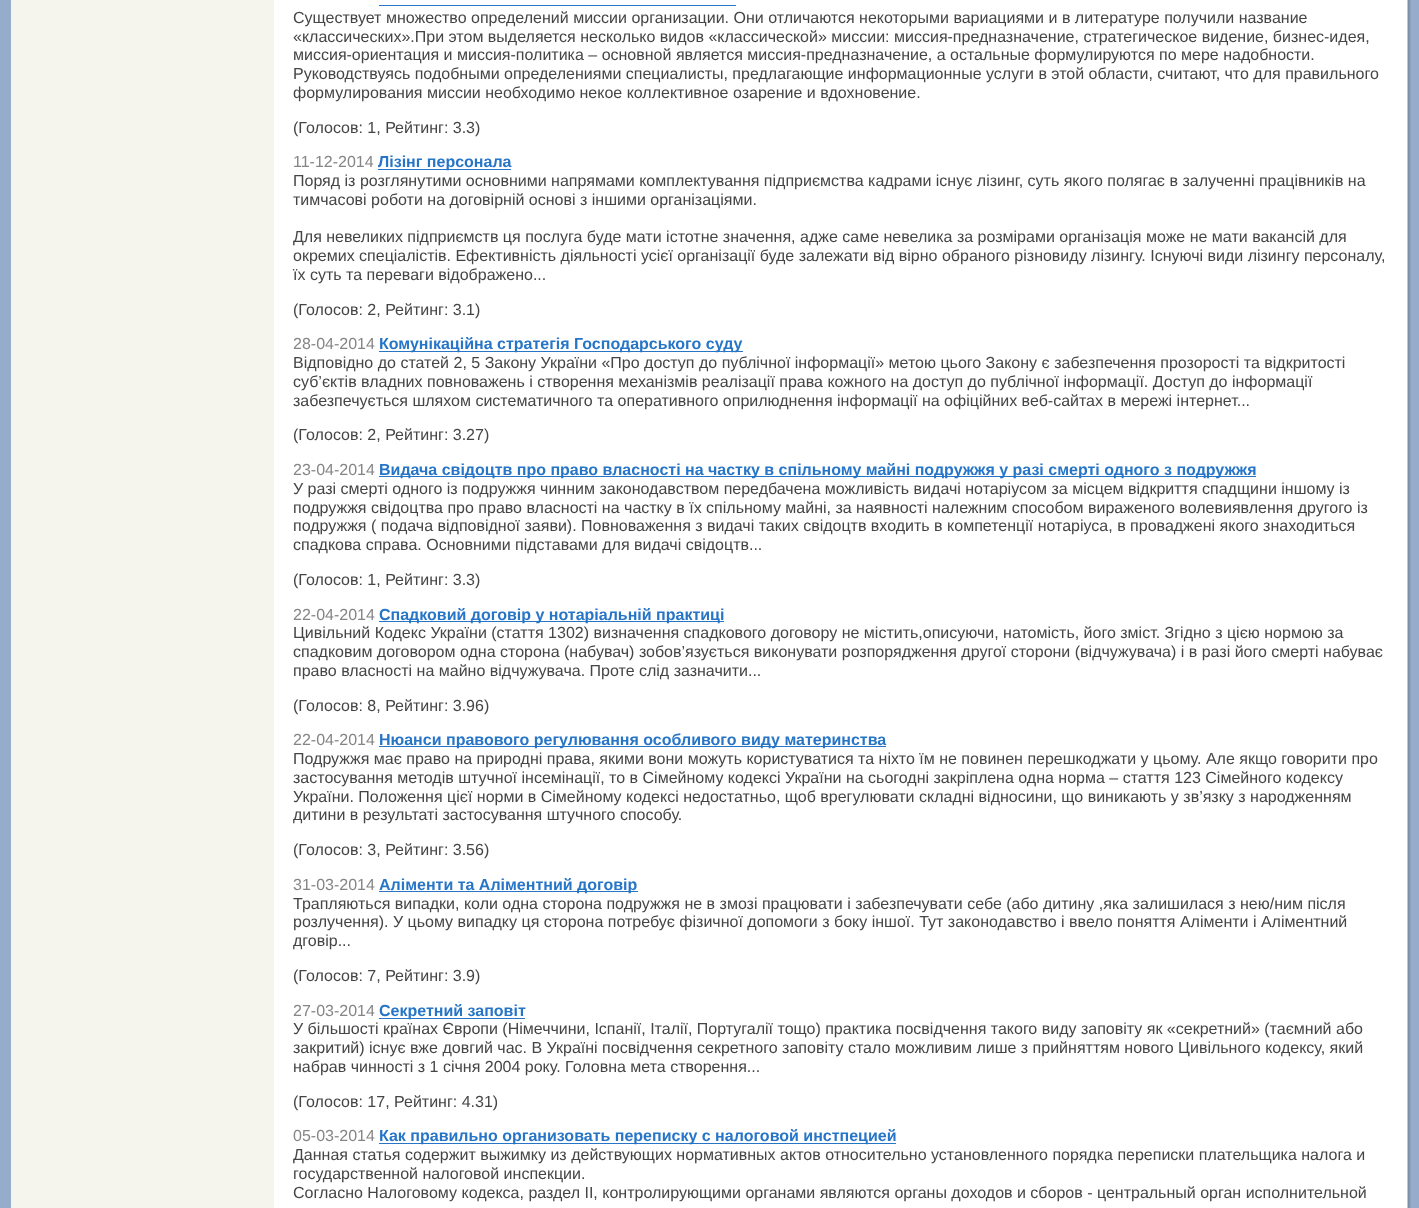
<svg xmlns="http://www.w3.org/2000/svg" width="1419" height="1208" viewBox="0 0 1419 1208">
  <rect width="100%" height="100%" fill="#fff"/>
  <path d="M0 0h11v1208H0z" fill="#95acca"/>
  <path d="M1411 0h8v1208H1411z" fill="#95acca"/>
  <path d="M11 0h263v1208H11z" fill="#f5f5ed"/>
  <image x="1407" y="0" width="4" height="1208" href="img/1.png"/>
  <path d="M379 5h357v1H379z" fill="#2775c7"/>
  <path d="M378 169h133v1H378z" fill="#2775c7"/>
  <path d="M379 351h364v1H379z" fill="#2775c7"/>
  <path d="M379 476h877v1H379z" fill="#2775c7"/>
  <path d="M379 621h345v1H379z" fill="#2775c7"/>
  <path d="M379 746h507v1H379z" fill="#2775c7"/>
  <path d="M379 891h259v1H379z" fill="#2775c7"/>
  <path d="M379 1018h146v1H379z" fill="#2775c7"/>
  <path d="M379 1143h517v1H379z" fill="#2775c7"/>
  <g font-family="Liberation Sans" font-size="16" fill="#454545">
    <text x="293" y="23">Существует множество определений миссии организации. Они отличаются некоторыми вариациями и в литературе получили название</text>
    <text x="293" y="42">«классических».При этом выделяется несколько видов «классической» миссии: миссия-предназначение, стратегическое видение, бизнес-идея,</text>
    <text x="293" y="60">миссия-ориентация и миссия-политика – основной является миссия-предназначение, а остальные формулируются по мере надобности.</text>
    <text x="293" y="79">Руководствуясь подобными определениями специалисты, предлагающие информационные услуги в этой области, считают, что для правильного</text>
    <text x="293" y="98">формулирования миссии необходимо некое коллективное озарение и вдохновение.</text>
    <text x="293" y="133">(Голосов: 1, Рейтинг: 3.3)</text>
  </g>
  <text x="293" y="167" font-family="Liberation Sans" font-size="16" fill="#858585">11-12-2014</text>
  <text x="378" y="167" font-family="Liberation Sans" font-size="16" font-weight="bold" fill="#2775c7">Лiзiнг персонала</text>
  <g font-family="Liberation Sans" font-size="16" fill="#454545">
    <text x="293" y="186">Поряд із розглянутими основними напрямами комплектування підприємства кадрами існує лізинг, суть якого полягає в залученні працівників на</text>
    <text x="293" y="205">тимчасові роботи на договірній основі з іншими організаціями.</text>
    <text x="293" y="242">Для невеликих підприємств ця послуга буде мати істотне значення, адже саме невелика за розмірами організація може не мати вакансій для</text>
    <text x="293" y="261">окремих спеціалістів. Ефективність діяльності усієї організації буде залежати від вірно обраного різновиду лізингу. Існуючі види лізингу персоналу,</text>
    <text x="293" y="280">їх суть та переваги відображено...</text>
    <text x="293" y="315">(Голосов: 2, Рейтинг: 3.1)</text>
  </g>
  <text x="293" y="349" font-family="Liberation Sans" font-size="16" fill="#858585">28-04-2014</text>
  <text x="379" y="349" font-family="Liberation Sans" font-size="16" font-weight="bold" fill="#2775c7">Комунікаційна стратегія Господарського суду</text>
  <g font-family="Liberation Sans" font-size="16" fill="#454545">
    <text x="293" y="368">Відповідно до статей 2, 5 Закону України «Про доступ до публічної інформації» метою цього Закону є забезпечення прозорості та відкритості</text>
    <text x="293" y="387">суб’єктів владних повноважень і створення механізмів реалізації права кожного на доступ до публічної інформації. Доступ до інформації</text>
    <text x="293" y="406">забезпечується шляхом систематичного та оперативного оприлюднення інформації на офіційних веб-сайтах в мережі інтернет...</text>
    <text x="293" y="440">(Голосов: 2, Рейтинг: 3.27)</text>
  </g>
  <text x="293" y="475" font-family="Liberation Sans" font-size="16" fill="#858585">23-04-2014</text>
  <text x="379" y="475" font-family="Liberation Sans" font-size="16" font-weight="bold" fill="#2775c7">Видача свідоцтв про право власності на частку в спільному майні подружжя у разі смерті одного з подружжя</text>
  <g font-family="Liberation Sans" font-size="16" fill="#454545">
    <text x="293" y="494">У разі смерті одного із подружжя чинним законодавством передбачена можливість видачі нотаріусом за місцем відкриття спадщини іншому із</text>
    <text x="293" y="513">подружжя свідоцтва про право власності на частку в їх спільному майні, за наявності належним способом вираженого волевиявлення другого із</text>
    <text x="293" y="531">подружжя ( подача відповідної заяви). Повноваження з видачі таких свідоцтв входить в компетенції нотаріуса, в проваджені якого знаходиться</text>
    <text x="293" y="550">спадкова справа. Основними підставами для видачі свідоцтв...</text>
    <text x="293" y="585">(Голосов: 1, Рейтинг: 3.3)</text>
  </g>
  <text x="293" y="620" font-family="Liberation Sans" font-size="16" fill="#858585">22-04-2014</text>
  <text x="379" y="620" font-family="Liberation Sans" font-size="16" font-weight="bold" fill="#2775c7">Спадковий договір у нотаріальній практиці</text>
  <g font-family="Liberation Sans" font-size="16" fill="#454545">
    <text x="293" y="638">Цивільний Кодекс України (стаття 1302) визначення спадкового договору не містить,описуючи, натомість, його зміст. Згідно з цією нормою за</text>
    <text x="293" y="657">спадковим договором одна сторона (набувач) зобов’язується виконувати розпорядження другої сторони (відчужувача) і в разі його смерті набуває</text>
    <text x="293" y="676">право власності на майно відчужувача. Проте слід зазначити...</text>
    <text x="293" y="711">(Голосов: 8, Рейтинг: 3.96)</text>
  </g>
  <text x="293" y="745" font-family="Liberation Sans" font-size="16" fill="#858585">22-04-2014</text>
  <text x="379" y="745" font-family="Liberation Sans" font-size="16" font-weight="bold" fill="#2775c7">Нюанси правового регулювання особливого виду материнства</text>
  <g font-family="Liberation Sans" font-size="16" fill="#454545">
    <text x="293" y="764">Подружжя має право на природні права, якими вони можуть користуватися та ніхто їм не повинен перешкоджати у цьому. Але якщо говорити про</text>
    <text x="293" y="783">застосування методів штучної інсемінації, то в Сімейному кодексі України на сьогодні закріплена одна норма – стаття 123 Сімейного кодексу</text>
    <text x="293" y="802">України. Положення цієї норми в Сімейному кодексі недостатньо, щоб врегулювати складні відносини, що виникають у зв’язку з народженням</text>
    <text x="293" y="820">дитини в результаті застосування штучного способу.</text>
    <text x="293" y="855">(Голосов: 3, Рейтинг: 3.56)</text>
  </g>
  <text x="293" y="890" font-family="Liberation Sans" font-size="16" fill="#858585">31-03-2014</text>
  <text x="379" y="890" font-family="Liberation Sans" font-size="16" font-weight="bold" fill="#2775c7">Аліменти та Аліментний договір</text>
  <g font-family="Liberation Sans" font-size="16" fill="#454545">
    <text x="293" y="909">Трапляються випадки, коли одна сторона подружжя не в змозі працювати і забезпечувати себе (або дитину ,яка залишилася з нею/ним після</text>
    <text x="293" y="927">розлучення). У цьому випадку ця сторона потребує фізичної допомоги з боку іншої. Тут законодавство і ввело поняття Аліменти і Аліментний</text>
    <text x="293" y="946">дговір...</text>
    <text x="293" y="981">(Голосов: 7, Рейтинг: 3.9)</text>
  </g>
  <text x="293" y="1016" font-family="Liberation Sans" font-size="16" fill="#858585">27-03-2014</text>
  <text x="379" y="1016" font-family="Liberation Sans" font-size="16" font-weight="bold" fill="#2775c7">Секретний заповіт</text>
  <g font-family="Liberation Sans" font-size="16" fill="#454545">
    <text x="293" y="1034">У більшості країнах Європи (Німеччини, Іспанії, Італії, Португалії тощо) практика посвідчення такого виду заповіту як «секретний» (таємний або</text>
    <text x="293" y="1053">закритий) існує вже довгий час. В Україні посвідчення секретного заповіту стало можливим лише з прийняттям нового Цивільного кодексу, який</text>
    <text x="293" y="1072">набрав чинності з 1 січня 2004 року. Головна мета створення...</text>
    <text x="293" y="1107">(Голосов: 17, Рейтинг: 4.31)</text>
  </g>
  <text x="293" y="1141" font-family="Liberation Sans" font-size="16" fill="#858585">05-03-2014</text>
  <text x="379" y="1141" font-family="Liberation Sans" font-size="16" font-weight="bold" fill="#2775c7">Как правильно организовать переписку с налоговой инстпецией</text>
  <g font-family="Liberation Sans" font-size="16" fill="#454545">
    <text x="293" y="1160">Данная статья содержит выжимку из действующих нормативных актов относительно установленного порядка переписки плательщика налога и</text>
    <text x="293" y="1179">государственной налоговой инспекции.</text>
    <text x="293" y="1198">Согласно Налоговому кодекса, раздел II, контролирующими органами являются органы доходов и сборов - центральный орган исполнительной</text>
  </g>
</svg>
